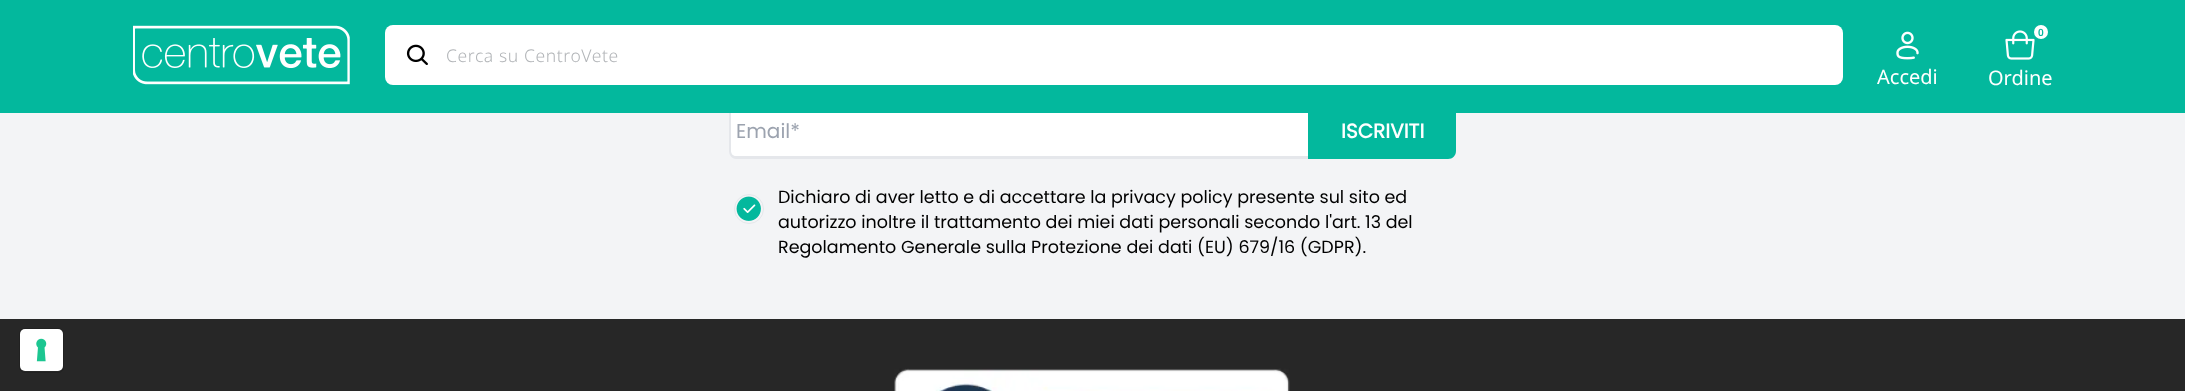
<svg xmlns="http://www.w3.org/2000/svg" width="2185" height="391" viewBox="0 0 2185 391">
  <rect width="100%" height="100%" fill="#272727"/>
  <path d="M0 113h2185v206H0z" fill="#f3f4f6"/>
  <path d="M736 106H1308V156H736C733 156 731 154 731 151V111C731 108 733 106 736 106Z" fill="#fff"/>
  <path d="M736 104H1308V159H736C732 159 729 155 729 151V111C729 107 732 104 736 104ZM736 106H1308V156H736C733 156 731 154 731 151V111C731 108 733 106 736 106Z" fill="#e5e7eb" fill-rule="evenodd"/>
  <path d="M1308 104H1448C1452.5 104 1456 107.5 1456 112V151C1456 155.5 1452.5 159 1448 159H1308Z" fill="#03b89d"/>
  <path d="M0 0h2185v113H0z" fill="#03b89d"/>
  <image x="133" y="25" width="217" height="60" href="img/1.png"/>
  <rect x="385" y="25" width="1458" height="60" rx="8" fill="#fff"/>
  <image x="406" y="44" width="22" height="21" href="img/2.png"/>
  <image x="1896" y="31" width="23" height="29" href="img/3.png"/>
  <image x="2005" y="30" width="30" height="30" href="img/4.png"/>
  <circle cx="2041" cy="32" r="7" fill="#fff"/>
  <circle cx="749" cy="209" r="14.5" fill="none" stroke="#e5e7eb"/>
  <image x="736" y="196" width="25" height="25" href="img/5.png"/>
  <image x="894" y="368" width="396" height="23" href="img/6.png"/>
  <rect x="19.5" y="328.5" width="44" height="44" rx="5.5" fill="none" stroke="#212121"/>
  <rect x="20" y="329" width="43" height="42" rx="5" fill="#fff"/>
  <image x="36" y="338" width="11" height="24" href="img/7.png"/>
  <text x="446" y="62" font-family="Noto Sans" font-size="17.5" font-weight="300" letter-spacing="0.6" fill="#b2b5b8">Cerca su CentroVete</text>
  <text x="1877" y="84" font-family="Noto Sans" font-size="20" fill="#fff">Accedi</text>
  <text x="2038" y="36" font-family="Noto Sans" font-size="10" font-weight="600" fill="#03b89d">0</text>
  <text x="1988" y="85" font-family="Noto Sans" font-size="20" fill="#fff">Ordine</text>
  <text x="736" y="138" font-family="Poppins" font-size="20" fill="#9ca3af">Email*</text>
  <text x="1341" y="138" font-family="Poppins" font-size="20" font-weight="bold" fill="#fff">ISCRIVITI</text>
  <g font-family="Poppins" font-size="17.5" fill="#000">
    <text x="778" y="203">Dichiaro di aver letto e di accettare la privacy policy presente sul sito ed</text>
    <text x="778" y="228">autorizzo inoltre il trattamento dei miei dati personali secondo l'art. 13 del</text>
    <text x="778" y="253">Regolamento Generale sulla Protezione dei dati (EU) 679/16 (GDPR).</text>
  </g>
</svg>
